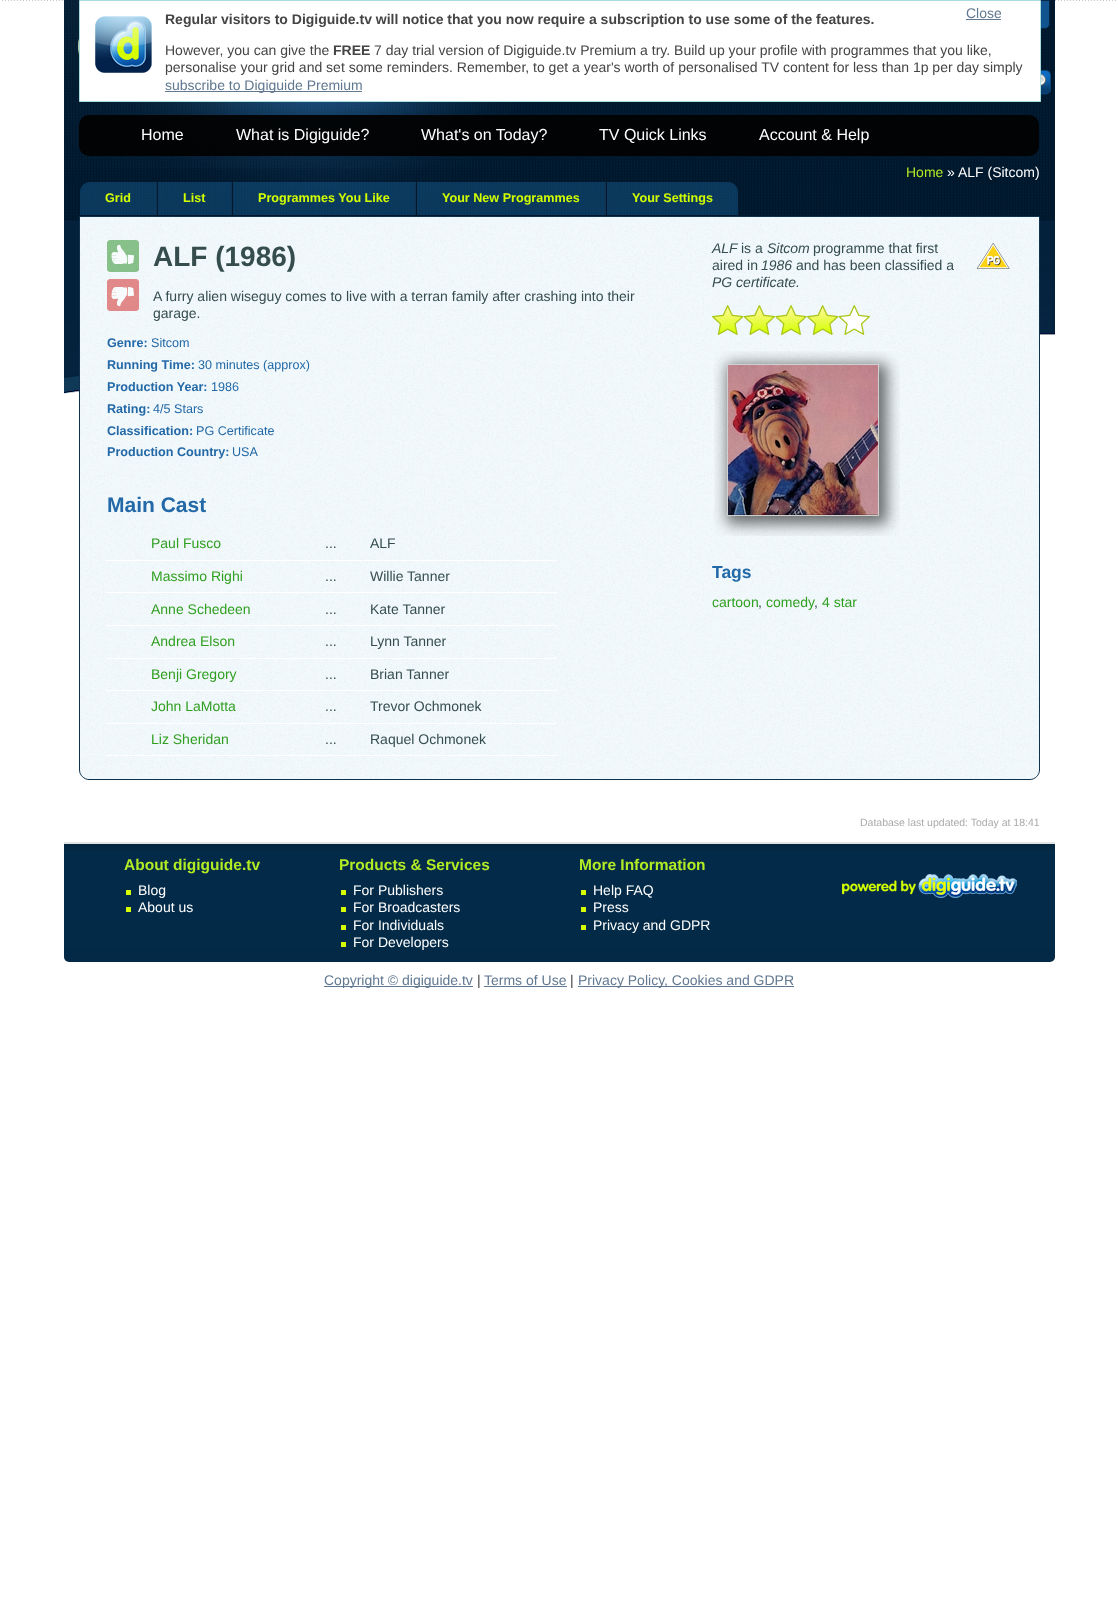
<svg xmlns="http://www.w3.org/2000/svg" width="1118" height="1602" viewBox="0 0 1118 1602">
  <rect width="100%" height="100%" fill="#fff"/>
  <image x="2" y="0" width="1114" height="3" href="img/1.png"/>
  <path d="M64 0H1055V957C1055 960 1053 962 1050 962H69C66 962 64 960 64 957Z" fill="#fff"/>
  <image x="1052" y="0" width="3" height="335" href="img/2.png"/>
  <image x="64" y="0" width="988" height="394" href="img/3.png"/>
  <path d="M986.5 .5H1049.5V24C1049.5 26.5 1047.5 28.5 1045 28.5H991C988.5 28.5 986.5 26.5 986.5 24Z" fill="#11538f" stroke="#062644"/>
  <path d="M79.5 0.5h961v101H79.5z" fill="#fff" stroke="#add"/>
  <image x="95" y="16" width="57" height="57" href="img/4.png"/>
  <path d="M966 19h35v1H966z" fill="#607890"/>
  <path d="M165 91h197v1H165z" fill="#607890"/>
  <path d="M90 182H157V215H80V192C80 186.5 84.5 182 90 182Z" fill="#1869a366"/>
  <path d="M156 182h1v33H156z" fill="#10324e"/>
  <path d="M158 182h73v33H158z" fill="#1869a366"/>
  <path d="M231 182h1v33H231z" fill="#10324e"/>
  <path d="M233 182h182v33H233z" fill="#1869a366"/>
  <path d="M415 182h1v33H415z" fill="#10324e"/>
  <path d="M417 182h188v33H417z" fill="#1869a366"/>
  <path d="M605 182h1v33H605z" fill="#10324e"/>
  <path d="M607 182H728C733.5 182 738 186.5 738 192V215H607Z" fill="#1869a366"/>
  <image x="79" y="217" width="961" height="563" href="img/5.png"/>
  <path d="M79.5 216.5H1039.5V770C1039.5 775 1035 779.5 1030 779.5H89C84 779.5 79.5 775 79.5 770Z" fill="none" stroke="#10324e"/>
  <image x="107" y="240" width="32" height="32" href="img/6.png"/>
  <image x="107" y="279" width="32" height="32" href="img/7.png"/>
  <image x="976" y="242" width="34" height="27" href="img/8.png"/>
  <image x="712" y="305" width="158" height="30" href="img/9.png"/>
  <image x="714" y="351" width="186" height="185" href="img/10.png"/>
  <path d="M727.5 364.5h151v151H727.5z" fill="none" stroke="#d0d0d0"/>
  <image x="728" y="365" width="150" height="150" href="img/11.png"/>
  <path d="M106 560h451v1H106z" fill="#fff"/>
  <path d="M106 592h451v1H106z" fill="#fff"/>
  <path d="M106 625h451v1H106z" fill="#fff"/>
  <path d="M106 658h451v1H106z" fill="#fff"/>
  <path d="M106 690h451v1H106z" fill="#fff"/>
  <path d="M106 723h451v1H106z" fill="#fff"/>
  <path d="M106 755h451v1H106z" fill="#fff"/>
  <image x="78" y="38" width="1" height="17" href="img/12.png"/>
  <image x="1041" y="70" width="10" height="25" href="img/13.png"/>
  <rect x="79" y="115" width="960" height="41" rx="10" fill="#020202f2"/>
  <image x="64" y="842" width="991" height="120" href="img/14.png"/>
  <path d="M126 890h5v5H126z" fill="#d7ff00"/>
  <path d="M126 907h5v5H126z" fill="#d7ff00"/>
  <path d="M341 890h5v5H341z" fill="#d7ff00"/>
  <path d="M341 907h5v5H341z" fill="#d7ff00"/>
  <path d="M341 925h5v5H341z" fill="#d7ff00"/>
  <path d="M341 942h5v5H341z" fill="#d7ff00"/>
  <path d="M581 890h5v5H581z" fill="#d7ff00"/>
  <path d="M581 907h5v5H581z" fill="#d7ff00"/>
  <path d="M581 925h5v5H581z" fill="#d7ff00"/>
  <image x="842" y="874" width="175" height="24" href="img/15.png"/>
  <path d="M324 986h149v1H324z" fill="#607890"/>
  <path d="M484 986h83v1H484z" fill="#607890"/>
  <path d="M578 986h216v1H578z" fill="#607890"/>
  <text x="165" y="24" font-family="Liberation Sans" font-size="14" font-weight="bold" fill="#444">Regular visitors to Digiguide.tv will notice that you now require a subscription to use some of the features.</text>
  <text x="966" y="18" font-family="Liberation Sans" font-size="14" fill="#607890">Close</text>
  <text x="165" y="55" font-family="Liberation Sans" font-size="14" fill="#444">However, you can give the</text>
  <text x="333" y="55" font-family="Liberation Sans" font-size="14" font-weight="bold" fill="#444">FREE</text>
  <g font-family="Liberation Sans" font-size="14" fill="#444">
    <text x="374" y="55">7 day trial version of Digiguide.tv Premium a try. Build up your profile with programmes that you like,</text>
    <text x="165" y="72">personalise your grid and set some reminders. Remember, to get a year's worth of personalised TV content for less than 1p per day simply</text>
  </g>
  <text x="165" y="90" font-family="Liberation Sans" font-size="14" fill="#607890">subscribe to Digiguide Premium</text>
  <text x="906" y="177" font-family="Liberation Sans" font-size="14" fill="#b3eb24">Home</text>
  <text x="947" y="177" font-family="Liberation Sans" font-size="14" fill="#fff">» ALF (Sitcom)</text>
  <g font-family="Liberation Sans" font-size="12.6" font-weight="bold" fill="#d3ff00">
    <text x="105" y="202">Grid</text>
    <text x="183" y="202">List</text>
    <text x="258" y="202">Programmes You Like</text>
    <text x="442" y="202">Your New Programmes</text>
    <text x="632" y="202">Your Settings</text>
  </g>
  <text x="153" y="266" font-family="Liberation Sans" font-size="28" font-weight="bold" fill="#354d4d">ALF (1986)</text>
  <text x="712" y="253" font-family="Liberation Sans" font-size="14" font-style="italic" fill="#354d4d">ALF</text>
  <text x="741" y="253" font-family="Liberation Sans" font-size="14" fill="#354d4d">is a</text>
  <text x="767" y="253" font-family="Liberation Sans" font-size="14" font-style="italic" fill="#354d4d">Sitcom</text>
  <g font-family="Liberation Sans" font-size="14" fill="#354d4d">
    <text x="813" y="253">programme that first</text>
    <text x="712" y="270">aired in</text>
  </g>
  <text x="761" y="270" font-family="Liberation Sans" font-size="14" font-style="italic" fill="#354d4d">1986</text>
  <text x="796" y="270" font-family="Liberation Sans" font-size="14" fill="#354d4d">and has been classified a</text>
  <text x="712" y="287" font-family="Liberation Sans" font-size="14" font-style="italic" fill="#354d4d">PG certificate.</text>
  <text x="712" y="578" font-family="Liberation Sans" font-size="17.5" font-weight="bold" fill="#2369a7">Tags</text>
  <text x="712" y="607" font-family="Liberation Sans" font-size="14" fill="#2f9f20">cartoon</text>
  <text x="758" y="607" font-family="Liberation Sans" font-size="14" fill="#354d4d">,</text>
  <text x="766" y="607" font-family="Liberation Sans" font-size="14" fill="#2f9f20">comedy</text>
  <text x="814" y="607" font-family="Liberation Sans" font-size="14" fill="#354d4d">,</text>
  <text x="822" y="607" font-family="Liberation Sans" font-size="14" fill="#2f9f20">4 star</text>
  <g font-family="Liberation Sans" font-size="14" fill="#354d4d">
    <text x="153" y="301">A furry alien wiseguy comes to live with a terran family after crashing into their</text>
    <text x="153" y="318">garage.</text>
  </g>
  <text x="107" y="347" font-family="Liberation Sans" font-size="12.6" font-weight="bold" fill="#2369a7">Genre:</text>
  <text x="151" y="347" font-family="Liberation Sans" font-size="12.6" fill="#2369a7">Sitcom</text>
  <text x="107" y="369" font-family="Liberation Sans" font-size="12.6" font-weight="bold" fill="#2369a7">Running Time:</text>
  <text x="198" y="369" font-family="Liberation Sans" font-size="12.6" fill="#2369a7">30 minutes (approx)</text>
  <text x="107" y="391" font-family="Liberation Sans" font-size="12.6" font-weight="bold" fill="#2369a7">Production Year:</text>
  <text x="211" y="391" font-family="Liberation Sans" font-size="12.6" fill="#2369a7">1986</text>
  <text x="107" y="413" font-family="Liberation Sans" font-size="12.6" font-weight="bold" fill="#2369a7">Rating:</text>
  <text x="153" y="413" font-family="Liberation Sans" font-size="12.6" fill="#2369a7">4/5 Stars</text>
  <text x="107" y="435" font-family="Liberation Sans" font-size="12.6" font-weight="bold" fill="#2369a7">Classification:</text>
  <text x="196" y="435" font-family="Liberation Sans" font-size="12.6" fill="#2369a7">PG Certificate</text>
  <text x="107" y="456" font-family="Liberation Sans" font-size="12.6" font-weight="bold" fill="#2369a7">Production Country:</text>
  <text x="232" y="456" font-family="Liberation Sans" font-size="12.6" fill="#2369a7">USA</text>
  <text x="107" y="512" font-family="Liberation Sans" font-size="21" font-weight="bold" fill="#2369a7">Main Cast</text>
  <text x="151" y="548" font-family="Liberation Sans" font-size="14" fill="#2f9f20">Paul Fusco</text>
  <g font-family="Liberation Sans" font-size="14" fill="#354d4d">
    <text x="325" y="548">...</text>
    <text x="370" y="548">ALF</text>
  </g>
  <text x="151" y="581" font-family="Liberation Sans" font-size="14" fill="#2f9f20">Massimo Righi</text>
  <g font-family="Liberation Sans" font-size="14" fill="#354d4d">
    <text x="325" y="581">...</text>
    <text x="370" y="581">Willie Tanner</text>
  </g>
  <text x="151" y="614" font-family="Liberation Sans" font-size="14" fill="#2f9f20">Anne Schedeen</text>
  <g font-family="Liberation Sans" font-size="14" fill="#354d4d">
    <text x="325" y="614">...</text>
    <text x="370" y="614">Kate Tanner</text>
  </g>
  <text x="151" y="646" font-family="Liberation Sans" font-size="14" fill="#2f9f20">Andrea Elson</text>
  <g font-family="Liberation Sans" font-size="14" fill="#354d4d">
    <text x="325" y="646">...</text>
    <text x="370" y="646">Lynn Tanner</text>
  </g>
  <text x="151" y="679" font-family="Liberation Sans" font-size="14" fill="#2f9f20">Benji Gregory</text>
  <g font-family="Liberation Sans" font-size="14" fill="#354d4d">
    <text x="325" y="679">...</text>
    <text x="370" y="679">Brian Tanner</text>
  </g>
  <text x="151" y="711" font-family="Liberation Sans" font-size="14" fill="#2f9f20">John LaMotta</text>
  <g font-family="Liberation Sans" font-size="14" fill="#354d4d">
    <text x="325" y="711">...</text>
    <text x="370" y="711">Trevor Ochmonek</text>
  </g>
  <text x="151" y="744" font-family="Liberation Sans" font-size="14" fill="#2f9f20">Liz Sheridan</text>
  <g font-family="Liberation Sans" font-size="14" fill="#354d4d">
    <text x="325" y="744">...</text>
    <text x="370" y="744">Raquel Ochmonek</text>
  </g>
  <text x="860" y="826" font-family="Liberation Sans" font-size="10.5" fill="#aaa">Database last updated: Today at 18:41</text>
  <g font-family="Liberation Sans" font-size="16" fill="#fff">
    <text x="141" y="140">Home</text>
    <text x="236" y="140">What is Digiguide?</text>
    <text x="421" y="140">What's on Today?</text>
    <text x="599" y="140">TV Quick Links</text>
    <text x="759" y="140">Account &amp; Help</text>
  </g>
  <text x="124" y="870" font-family="Liberation Sans" font-size="15.5" font-weight="bold" fill="#b3eb24">About digiguide.tv</text>
  <g font-family="Liberation Sans" font-size="14" fill="#fff">
    <text x="138" y="895">Blog</text>
    <text x="138" y="912">About us</text>
  </g>
  <text x="339" y="870" font-family="Liberation Sans" font-size="15.5" font-weight="bold" fill="#b3eb24">Products &amp; Services</text>
  <g font-family="Liberation Sans" font-size="14" fill="#fff">
    <text x="353" y="895">For Publishers</text>
    <text x="353" y="912">For Broadcasters</text>
    <text x="353" y="930">For Individuals</text>
    <text x="353" y="947">For Developers</text>
  </g>
  <text x="579" y="870" font-family="Liberation Sans" font-size="15.5" font-weight="bold" fill="#b3eb24">More Information</text>
  <g font-family="Liberation Sans" font-size="14" fill="#fff">
    <text x="593" y="895">Help FAQ</text>
    <text x="593" y="912">Press</text>
    <text x="593" y="930">Privacy and GDPR</text>
  </g>
  <text x="324" y="985" font-family="Liberation Sans" font-size="14" fill="#607890">Copyright © digiguide.tv</text>
  <text x="477" y="985" font-family="Liberation Sans" font-size="14" fill="#444">|</text>
  <text x="484" y="985" font-family="Liberation Sans" font-size="14" fill="#607890">Terms of Use</text>
  <text x="570" y="985" font-family="Liberation Sans" font-size="14" fill="#444">|</text>
  <text x="578" y="985" font-family="Liberation Sans" font-size="14" fill="#607890">Privacy Policy, Cookies and GDPR</text>
</svg>
